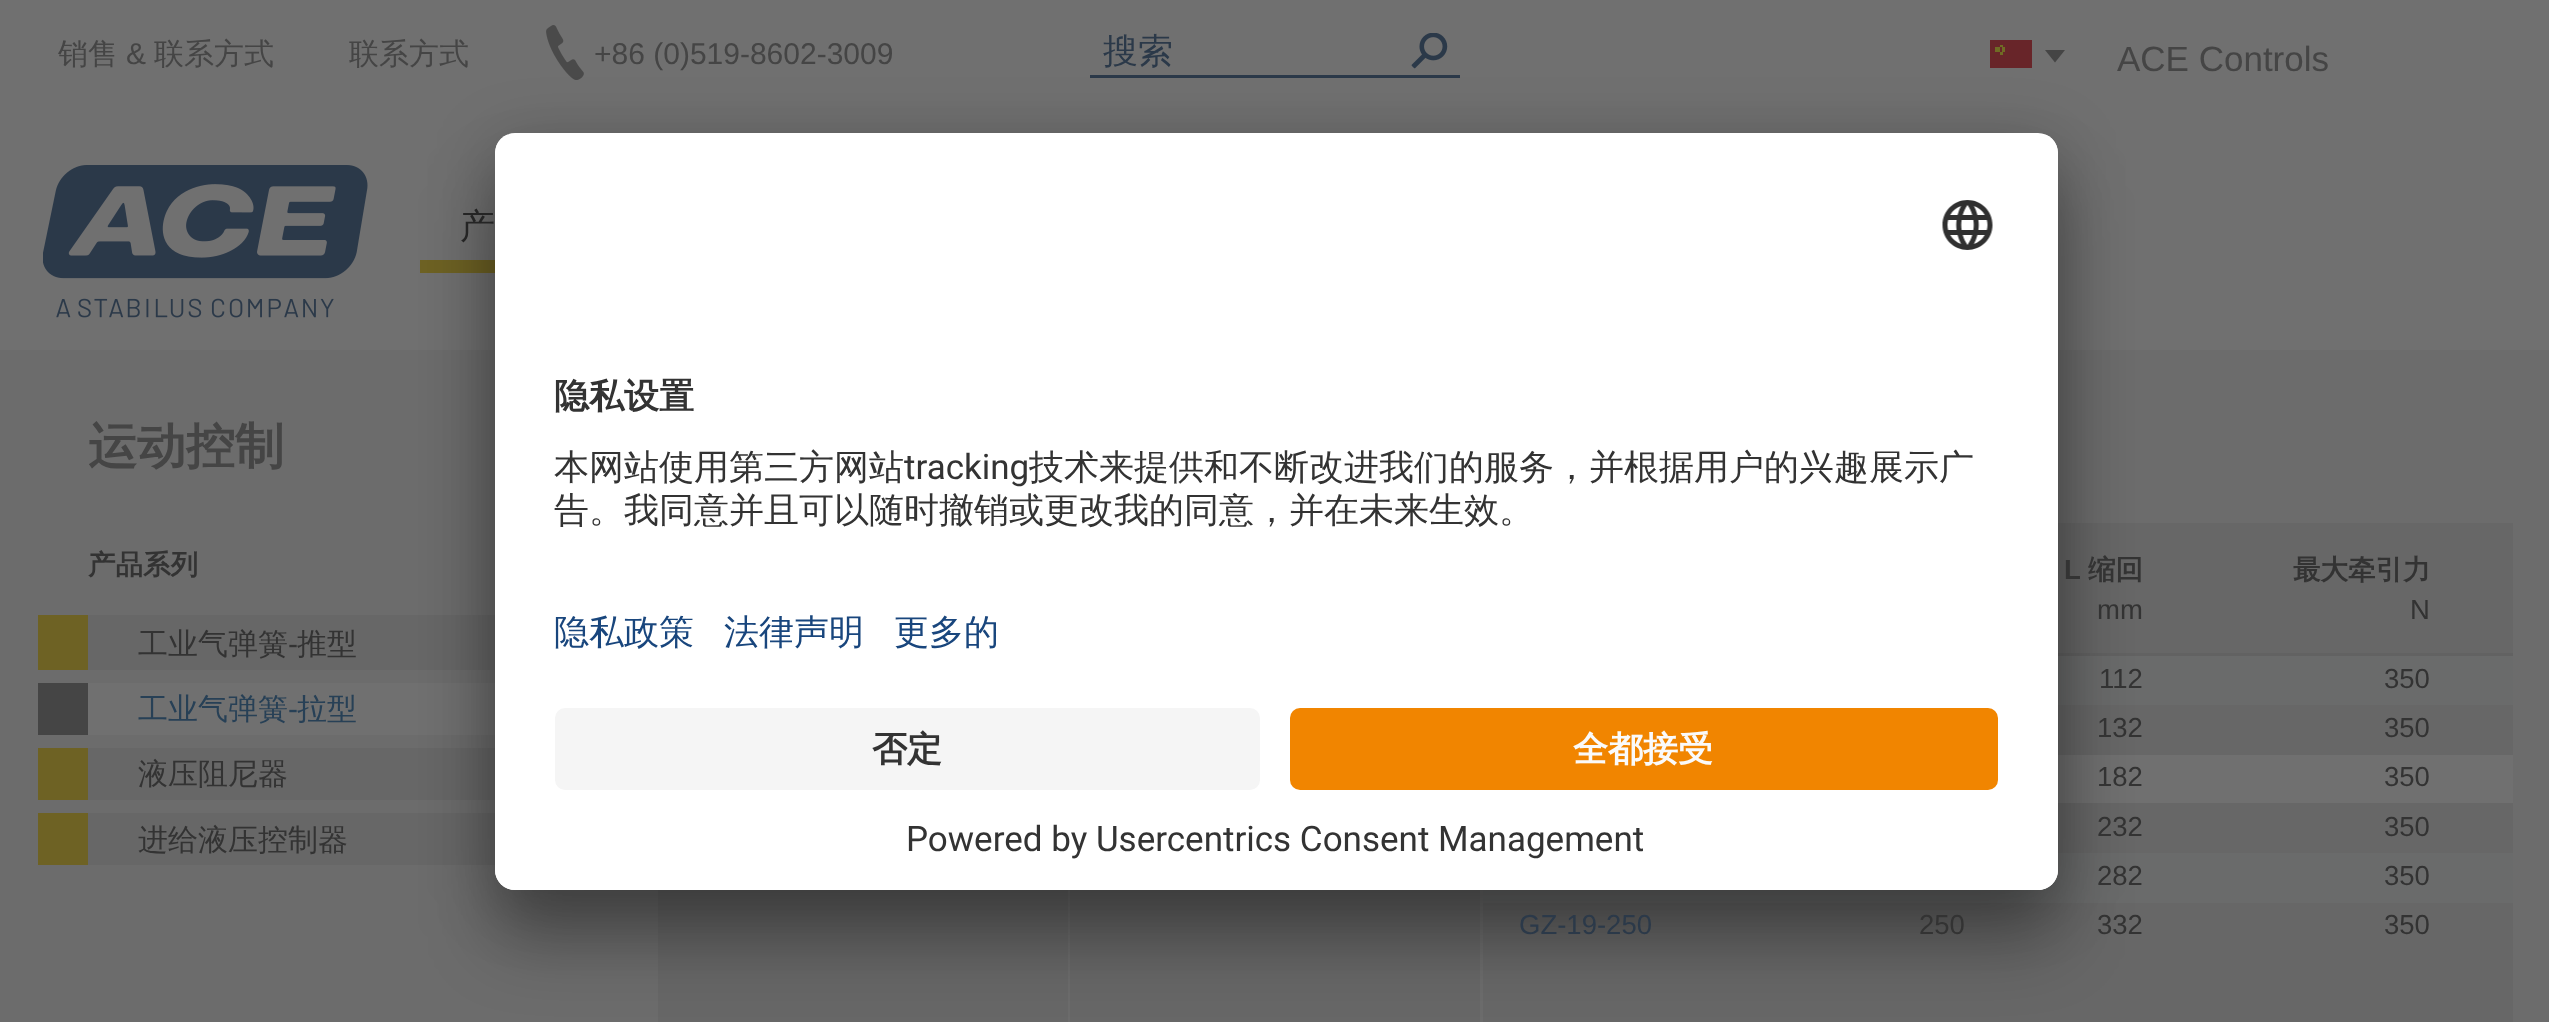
<svg xmlns="http://www.w3.org/2000/svg" width="2549" height="1022" viewBox="0 0 2549 1022">
  <defs>
    <clipPath id="clip1"><rect x="495" y="133" width="1563" height="757" rx="20"/></clipPath>
    <clipPath id="clip2"><path d="M515 133H2038C2049 133 2058 142 2058 153V688H495V153C495 142 504 133 515 133Z"/></clipPath>
  </defs>
  <rect width="100%" height="100%" fill="#707070"/>
  <image x="546" y="25" width="38" height="55" href="img/1.png"/>
  <path d="M1090 75h370v3H1090z" fill="#2b3949"/>
  <image x="1411" y="33" width="37" height="36" href="img/2.png"/>
  <path d="M1990 40h42v28H1990z" fill="#682529"/>
  <path d="M1995 47h5v5H1995z" fill="#706b24"/>
  <path d="M2002 47h3v5H2002z" fill="#706b24"/>
  <path d="M2000 45h3v2H2000z" fill="#706b24"/>
  <path d="M2000 52h3v3H2000z" fill="#706b24"/>
  <path d="M2045 50H2065L2055 62.5Z" fill="#454545"/>
  <image x="43" y="165" width="325" height="153" href="img/3.png"/>
  <path d="M420 260h75v13H420z" fill="#6e6224"/>
  <path d="M0 350h2549v672H0z" fill="#6c6c6c"/>
  <path d="M88 615h407v55H88z" fill="#676767"/>
  <path d="M38 615h50v55H38z" fill="#6e6224"/>
  <path d="M88 683h407v52H88z" fill="#707070"/>
  <path d="M38 683h50v52H38z" fill="#454545"/>
  <path d="M88 748h407v52H88z" fill="#676767"/>
  <path d="M38 748h50v52H38z" fill="#6e6224"/>
  <path d="M88 813h407v52H88z" fill="#676767"/>
  <path d="M38 813h50v52H38z" fill="#6e6224"/>
  <path d="M1483 523h1030v499H1483z" fill="#676767"/>
  <path d="M2058 653h455v3H2058z" fill="#626262"/>
  <path d="M2058 656h455v49H2058z" fill="#6a6b6b"/>
  <path d="M2058 755h455v48H2058z" fill="#707070"/>
  <path d="M1483 853h1030v50H1483z" fill="#6a6b6b"/>
  <path d="M658 890h410v132H658z" fill="#676767"/>
  <path d="M1070 890h410v132H1070z" fill="#676767"/>
  <rect x="495" y="183" width="1563" height="757" rx="20" fill="#0000004d" filter="blur(35px)"/>
  <rect x="495" y="145" width="1563" height="758" rx="20" fill="#00000038" filter="blur(32.5px)"/>
  <rect x="495" y="133" width="1563" height="757" rx="20" fill="#fff"/>
  <g clip-path="url(#clip1)">
    <g clip-path="url(#clip2)">
      <path d="M495 135h1563v553H495z" fill="#fff"/>
    </g>
  </g>
  <image x="1942" y="200" width="51" height="50" href="img/4.png"/>
  <path d="M495 688H2058V870C2058 881 2049 890 2038 890H515C504 890 495 881 495 870Z" fill="#fff"/>
  <rect x="555" y="708" width="705" height="82" rx="10" fill="#f5f5f5"/>
  <rect x="1290" y="708" width="708" height="82" rx="10" fill="#f18500"/>
  <text x="58" y="64" font-family="WenQuanYi Zen Hei" font-size="30" font-weight="500" fill="#454545">销售</text>
  <text x="126" y="64" font-family="Liberation Sans" font-size="30" fill="#454545">&amp;</text>
  <g font-family="WenQuanYi Zen Hei" font-size="30" font-weight="500" fill="#454545">
    <text x="154" y="64">联系方式</text>
    <text x="349" y="64">联系方式</text>
  </g>
  <text x="594" y="64" font-family="Liberation Sans" font-size="30" fill="#454545">+86 (0)519-8602-3009</text>
  <text x="1103" y="63" font-family="WenQuanYi Zen Hei" font-size="35" font-weight="500" fill="#2b3949">搜索</text>
  <text x="2117" y="71" font-family="Liberation Sans" font-size="35" fill="#454545">ACE Controls</text>
  <text x="460" y="238" font-family="WenQuanYi Zen Hei" font-size="35" font-weight="500" fill="#242424">产</text>
  <text x="88" y="463" font-family="WenQuanYi Zen Hei" font-size="49" font-weight="bold" fill="#454545">运动控制</text>
  <text x="88" y="574" font-family="WenQuanYi Zen Hei" font-size="27.5" font-weight="bold" fill="#333">产品系列</text>
  <text x="138" y="654" font-family="WenQuanYi Zen Hei" font-size="30" font-weight="500" fill="#333">工业气弹簧</text>
  <text x="288" y="654" font-family="Liberation Sans" font-size="30" fill="#333">-</text>
  <text x="297" y="654" font-family="WenQuanYi Zen Hei" font-size="30" font-weight="500" fill="#333">推型</text>
  <text x="138" y="719" font-family="WenQuanYi Zen Hei" font-size="30" font-weight="500" fill="#274056">工业气弹簧</text>
  <text x="288" y="719" font-family="Liberation Sans" font-size="30" fill="#274056">-</text>
  <text x="297" y="719" font-family="WenQuanYi Zen Hei" font-size="30" font-weight="500" fill="#274056">拉型</text>
  <g font-family="WenQuanYi Zen Hei" font-size="30" font-weight="500" fill="#333">
    <text x="138" y="784">液压阻尼器</text>
    <text x="138" y="850">进给液压控制器</text>
  </g>
  <text x="2064" y="579" font-family="Liberation Sans" font-size="27.5" font-weight="bold" fill="#333">L</text>
  <text x="2088" y="579" font-family="WenQuanYi Zen Hei" font-size="27.5" font-weight="bold" fill="#333">缩回</text>
  <text x="2097" y="619" font-family="Liberation Sans" font-size="27.5" fill="#333">mm</text>
  <text x="2293" y="579" font-family="WenQuanYi Zen Hei" font-size="27.5" font-weight="bold" fill="#333">最大牵引力</text>
  <g font-family="Liberation Sans" font-size="27.5" fill="#333">
    <text x="2410" y="619">N</text>
    <text x="2099" y="688">112</text>
    <text x="2384" y="688">350</text>
    <text x="2097" y="737">132</text>
    <text x="2384" y="737">350</text>
    <text x="2097" y="786">182</text>
    <text x="2384" y="786">350</text>
    <text x="2097" y="836">232</text>
    <text x="2384" y="836">350</text>
    <text x="2097" y="885">282</text>
    <text x="2384" y="885">350</text>
  </g>
  <text x="1519" y="934" font-family="Liberation Sans" font-size="27.5" fill="#2b3949">GZ-19-250</text>
  <g font-family="Liberation Sans" font-size="27.5" fill="#333">
    <text x="1919" y="934">250</text>
    <text x="2097" y="934">332</text>
    <text x="2384" y="934">350</text>
  </g>
  <text x="554" y="408" font-family="WenQuanYi Zen Hei" font-size="35" font-weight="bold" fill="#333">隐私设置</text>
  <text x="554" y="479" font-family="WenQuanYi Zen Hei" font-size="35" font-weight="500" fill="#333">本网站使用第三方网站</text>
  <text x="904" y="479" font-family="Roboto" font-size="35" fill="#333">tracking</text>
  <g font-family="WenQuanYi Zen Hei" font-size="35" font-weight="500" fill="#333">
    <text x="1029" y="479">技术来提供和不断改进我们的服务，并根据用户的兴趣展示广</text>
    <text x="554" y="522">告。我同意并且可以随时撤销或更改我的同意，并在未来生效。</text>
  </g>
  <g font-family="WenQuanYi Zen Hei" font-size="35" font-weight="500" fill="#19467d">
    <text x="554" y="644">隐私政策</text>
    <text x="724" y="644">法律声明</text>
    <text x="894" y="644">更多的</text>
  </g>
  <text x="872" y="761" font-family="WenQuanYi Zen Hei" font-size="35" font-weight="bold" fill="#333">否定</text>
  <text x="1573" y="761" font-family="WenQuanYi Zen Hei" font-size="35" font-weight="bold" fill="#fafafa">全都接受</text>
  <text x="906" y="851" font-family="Roboto" font-size="35" fill="#333">Powered by Usercentrics Consent Management</text>
</svg>
